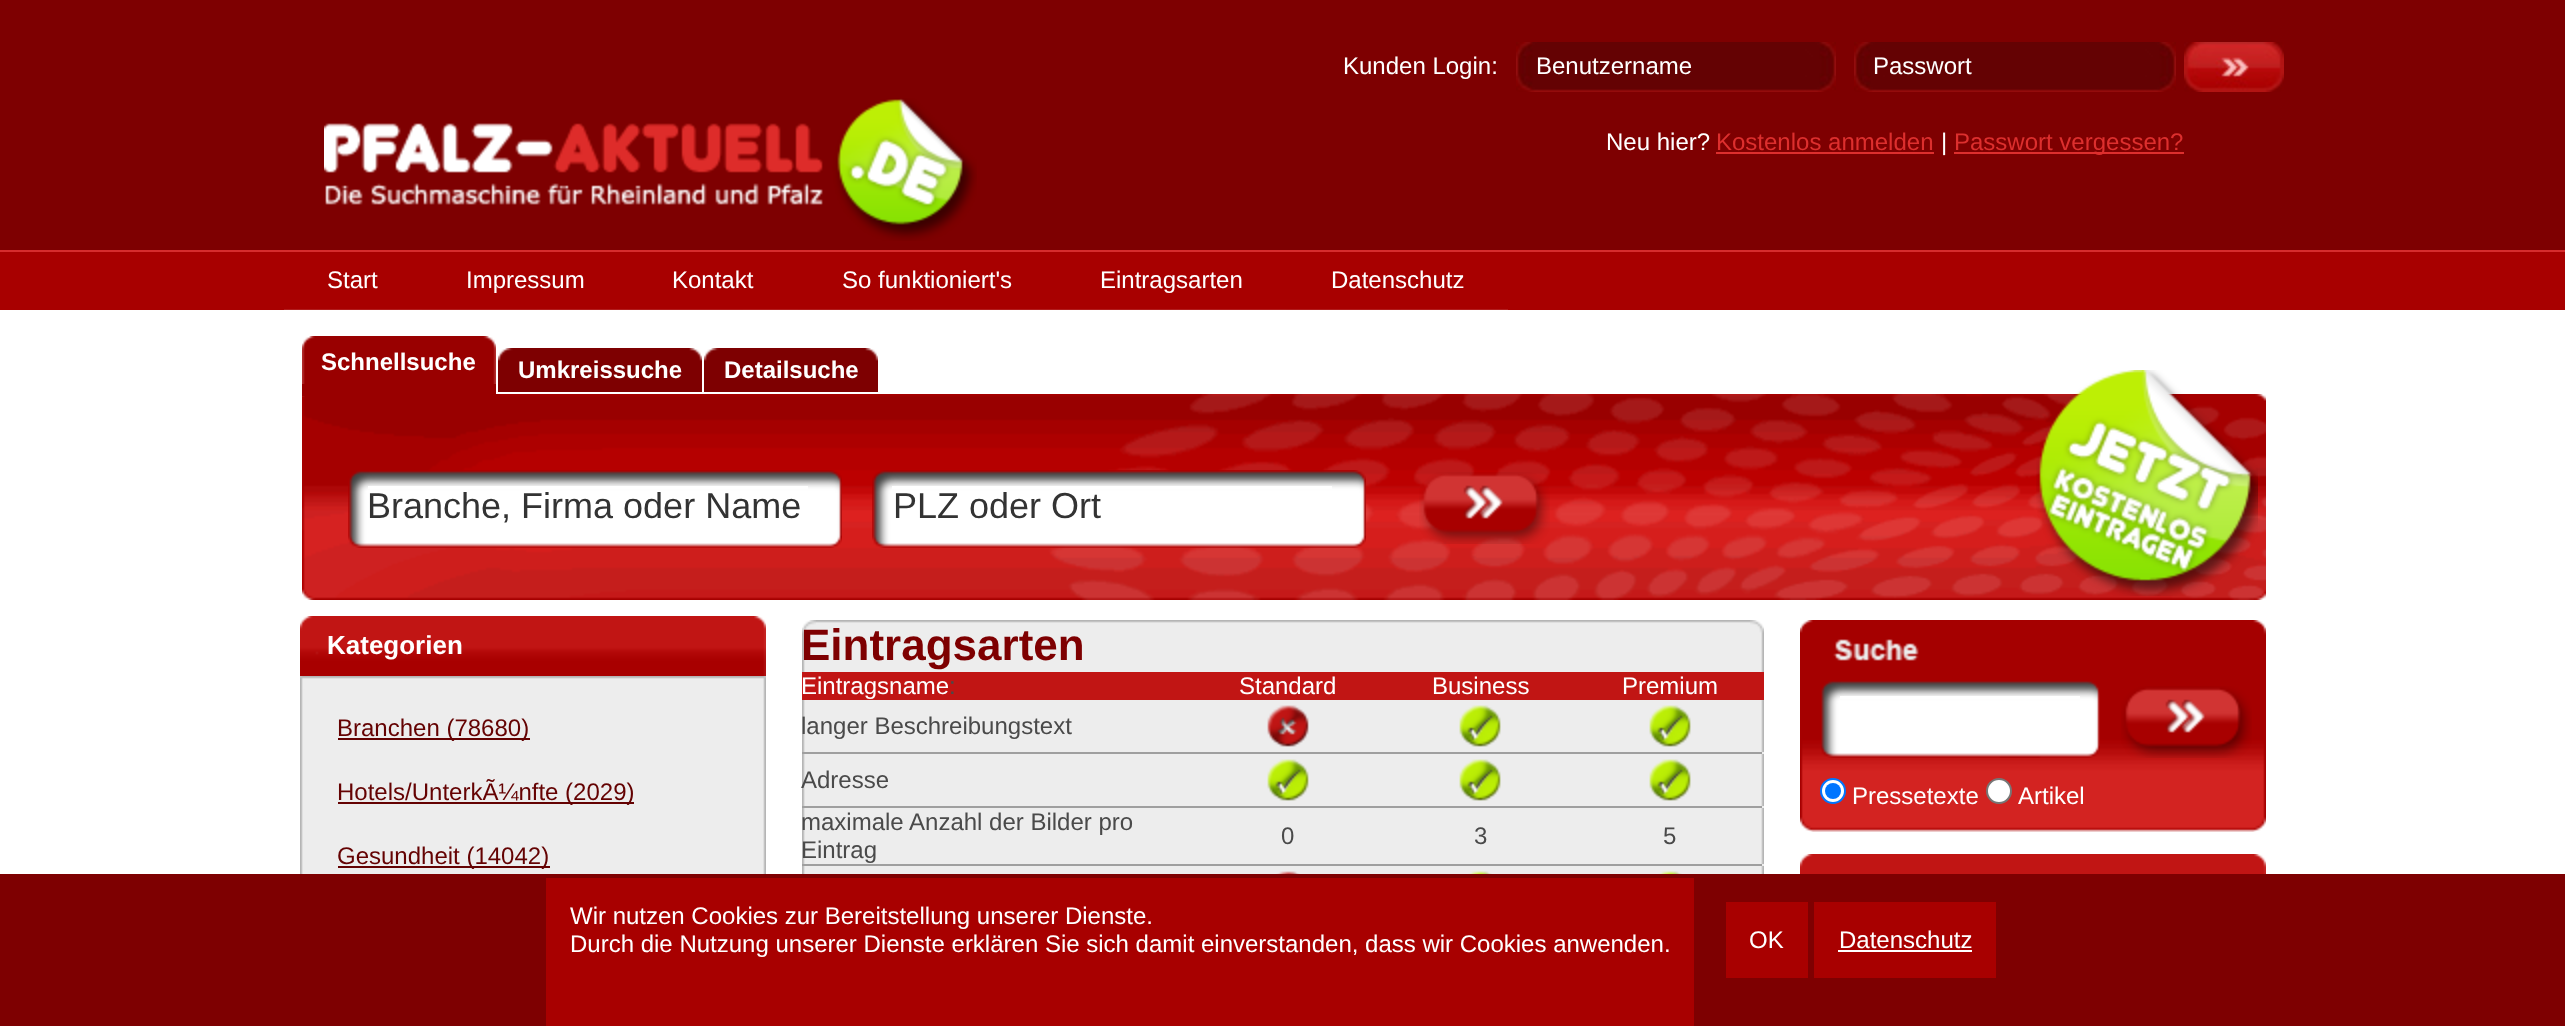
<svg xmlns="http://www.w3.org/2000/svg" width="2565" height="1026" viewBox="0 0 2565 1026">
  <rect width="100%" height="100%" fill="#fff"/>
  <path d="M0 0h2565v250H0z" fill="#7e0001"/>
  <image x="324" y="98" width="653" height="143" href="img/1.png"/>
  <image x="1516" y="42" width="320" height="50" href="img/2.png"/>
  <image x="1854" y="42" width="322" height="50" href="img/3.png"/>
  <image x="2184" y="42" width="100" height="50" href="img/4.png"/>
  <path d="M1716 152h218v2H1716z" fill="#dd2f2e"/>
  <path d="M1954 152h230v2H1954z" fill="#dd2f2e"/>
  <image x="302" y="394" width="1964" height="206" href="img/18.png"/>
  <image x="2036" y="370" width="222" height="226" href="img/5.png"/>
  <path d="M0 252h2565v58H0z" fill="#a80000"/>
  <path d="M0 250h2565v2H0z" fill="#d62c2d"/>
  <image x="284" y="309" width="138" height="1" href="img/6.png"/>
  <image x="422" y="309" width="206" height="1" href="img/7.png"/>
  <image x="628" y="309" width="170" height="1" href="img/8.png"/>
  <image x="798" y="309" width="258" height="1" href="img/9.png"/>
  <image x="1056" y="309" width="230" height="1" href="img/10.png"/>
  <image x="1286" y="309" width="222" height="1" href="img/11.png"/>
  <image x="369" y="336" width="127" height="48" href="img/12.png"/>
  <path d="M302 384h194v12H302z" fill="#900"/>
  <image x="302" y="336" width="67" height="48" href="img/13.png"/>
  <image x="575" y="348" width="127" height="44" href="img/14.png"/>
  <image x="498" y="348" width="77" height="44" href="img/15.png"/>
  <image x="752" y="348" width="126" height="44" href="img/16.png"/>
  <image x="704" y="348" width="48" height="44" href="img/17.png"/>
  <image x="348" y="470" width="494" height="78" href="img/19.png"/>
  <path d="M368 486h440v3H368z" fill="#fff"/>
  <image x="872" y="470" width="494" height="78" href="img/20.png"/>
  <path d="M892 486h440v3H892z" fill="#fff"/>
  <image x="1419" y="472" width="131" height="72" href="img/21.png"/>
  <image x="300" y="616" width="454" height="60" href="img/22.png"/>
  <image x="754" y="616" width="12" height="60" href="img/23.png"/>
  <image x="300" y="676" width="14" height="14" href="img/24.png"/>
  <image x="314" y="676" width="438" height="14" href="img/25.png"/>
  <image x="752" y="676" width="14" height="14" href="img/26.png"/>
  <image x="300" y="690" width="14" height="184" href="img/27.png"/>
  <path d="M314 690h438v184H314z" fill="#ededed"/>
  <image x="752" y="690" width="14" height="184" href="img/28.png"/>
  <path d="M338 738h192v2H338z" fill="#640202"/>
  <path d="M338 802h296v2H338z" fill="#640202"/>
  <path d="M338 866h212v2H338z" fill="#640202"/>
  <image x="802" y="620" width="14" height="14" href="img/29.png"/>
  <image x="816" y="620" width="934" height="14" href="img/30.png"/>
  <image x="1750" y="620" width="14" height="14" href="img/31.png"/>
  <image x="802" y="634" width="14" height="240" href="img/36.png"/>
  <path d="M816 634h934v240H816z" fill="#ededed"/>
  <image x="1750" y="634" width="14" height="240" href="img/37.png"/>
  <path d="M802 672h962v28H802z" fill="#c11514"/>
  <image x="1267" y="705" width="42" height="42" href="img/32.png"/>
  <image x="1459" y="705" width="42" height="42" href="img/33.png"/>
  <image x="1649" y="705" width="42" height="42" href="img/33.png"/>
  <path d="M802 752h962v2H802z" fill="#9f9f9f"/>
  <path d="M1762 752h2v2H1762z" fill="#eee"/>
  <image x="1267" y="759" width="42" height="42" href="img/33.png"/>
  <image x="1459" y="759" width="42" height="42" href="img/33.png"/>
  <image x="1649" y="759" width="42" height="42" href="img/33.png"/>
  <path d="M802 806h962v2H802z" fill="#9f9f9f"/>
  <path d="M1762 806h2v2H1762z" fill="#eee"/>
  <path d="M802 864h962v2H802z" fill="#9f9f9f"/>
  <path d="M1762 864h2v2H1762z" fill="#eee"/>
  <image x="1276" y="871" width="24" height="3" href="img/34.png"/>
  <image x="1468" y="871" width="24" height="3" href="img/35.png"/>
  <image x="1658" y="871" width="24" height="3" href="img/35.png"/>
  <image x="1800" y="620" width="466" height="212" href="img/38.png"/>
  <image x="1821" y="681" width="279" height="77" href="img/39.png"/>
  <path d="M1840 696h240v3H1840z" fill="#fff"/>
  <image x="2121" y="686" width="131" height="72" href="img/40.png"/>
  <circle cx="1833" cy="791" r="12" fill="#fff" stroke="#0075ff" stroke-width="2"/>
  <circle cx="1833" cy="791" r="8" fill="#0075ff"/>
  <circle cx="1999" cy="791" r="12" fill="#fff" stroke="#767676" stroke-width="2"/>
  <image x="1800" y="854" width="454" height="20" href="img/41.png"/>
  <image x="2254" y="854" width="12" height="20" href="img/42.png"/>
  <path d="M0 874h2565v152H0z" fill="#7e0001"/>
  <path d="M546 878h1148v148H546z" fill="#a80000"/>
  <path d="M1726 902h82v76H1726z" fill="#a80000"/>
  <path d="M1814 902h182v76H1814z" fill="#a80000"/>
  <path d="M1838 950h134v2H1838z" fill="#fff"/>
  <g font-family="Liberation Sans" font-size="24" fill="#fff">
    <text x="1343" y="74">Kunden Login:</text>
    <text x="1536" y="74">Benutzername</text>
    <text x="1873" y="74">Passwort</text>
    <text x="1606" y="150">Neu hier?</text>
  </g>
  <text x="1716" y="150" font-family="Liberation Sans" font-size="24" fill="#dd2f2e">Kostenlos anmelden</text>
  <text x="1941" y="150" font-family="Liberation Sans" font-size="24" fill="#fff">|</text>
  <text x="1954" y="150" font-family="Liberation Sans" font-size="24" fill="#dd2f2e">Passwort vergessen?</text>
  <g font-family="Liberation Sans" font-size="24" fill="#fff">
    <text x="327" y="288">Start</text>
    <text x="466" y="288">Impressum</text>
    <text x="672" y="288">Kontakt</text>
    <text x="842" y="288">So funktioniert's</text>
    <text x="1100" y="288">Eintragsarten</text>
    <text x="1331" y="288">Datenschutz</text>
  </g>
  <g font-family="Liberation Sans" font-size="24" font-weight="bold" fill="#fff">
    <text x="321" y="370">Schnellsuche</text>
    <text x="518" y="378">Umkreissuche</text>
    <text x="724" y="378">Detailsuche</text>
  </g>
  <g font-family="Liberation Sans" font-size="36" fill="#333">
    <text x="367" y="518">Branche, Firma oder Name</text>
    <text x="893" y="518">PLZ oder Ort</text>
  </g>
  <text x="327" y="654" font-family="Liberation Sans" font-size="26" font-weight="bold" fill="#fff">Kategorien</text>
  <g font-family="Liberation Sans" font-size="24" fill="#640202">
    <text x="337" y="736">Branchen (78680)</text>
    <text x="337" y="800">Hotels/UnterkÃ¼nfte (2029)</text>
    <text x="337" y="864">Gesundheit (14042)</text>
  </g>
  <text x="801" y="660" font-family="Liberation Sans" font-size="44" font-weight="bold" fill="#7e0001">Eintragsarten</text>
  <text x="801" y="694" font-family="Liberation Sans" font-size="24" fill="#fff">Eintragsname</text>
  <text x="949" y="694" font-family="Liberation Sans" font-size="24" fill="#4a4a4a">:</text>
  <g font-family="Liberation Sans" font-size="24" fill="#fff">
    <text x="1239" y="694">Standard</text>
    <text x="1432" y="694">Business</text>
    <text x="1622" y="694">Premium</text>
  </g>
  <g font-family="Liberation Sans" font-size="24" fill="#4a4a4a">
    <text x="801" y="734">langer Beschreibungstext</text>
    <text x="801" y="788">Adresse</text>
    <text x="801" y="830">maximale Anzahl der Bilder pro</text>
    <text x="801" y="858">Eintrag</text>
    <text x="1281" y="844">0</text>
    <text x="1474" y="844">3</text>
    <text x="1663" y="844">5</text>
  </g>
  <g font-family="Liberation Sans" font-size="24" fill="#fff">
    <text x="1852" y="804">Pressetexte</text>
    <text x="2018" y="804">Artikel</text>
    <text x="570" y="924">Wir nutzen Cookies zur Bereitstellung unserer Dienste.</text>
    <text x="570" y="952">Durch die Nutzung unserer Dienste erklären Sie sich damit einverstanden, dass wir Cookies anwenden.</text>
    <text x="1749" y="948">OK</text>
    <text x="1839" y="948">Datenschutz</text>
  </g>
</svg>
